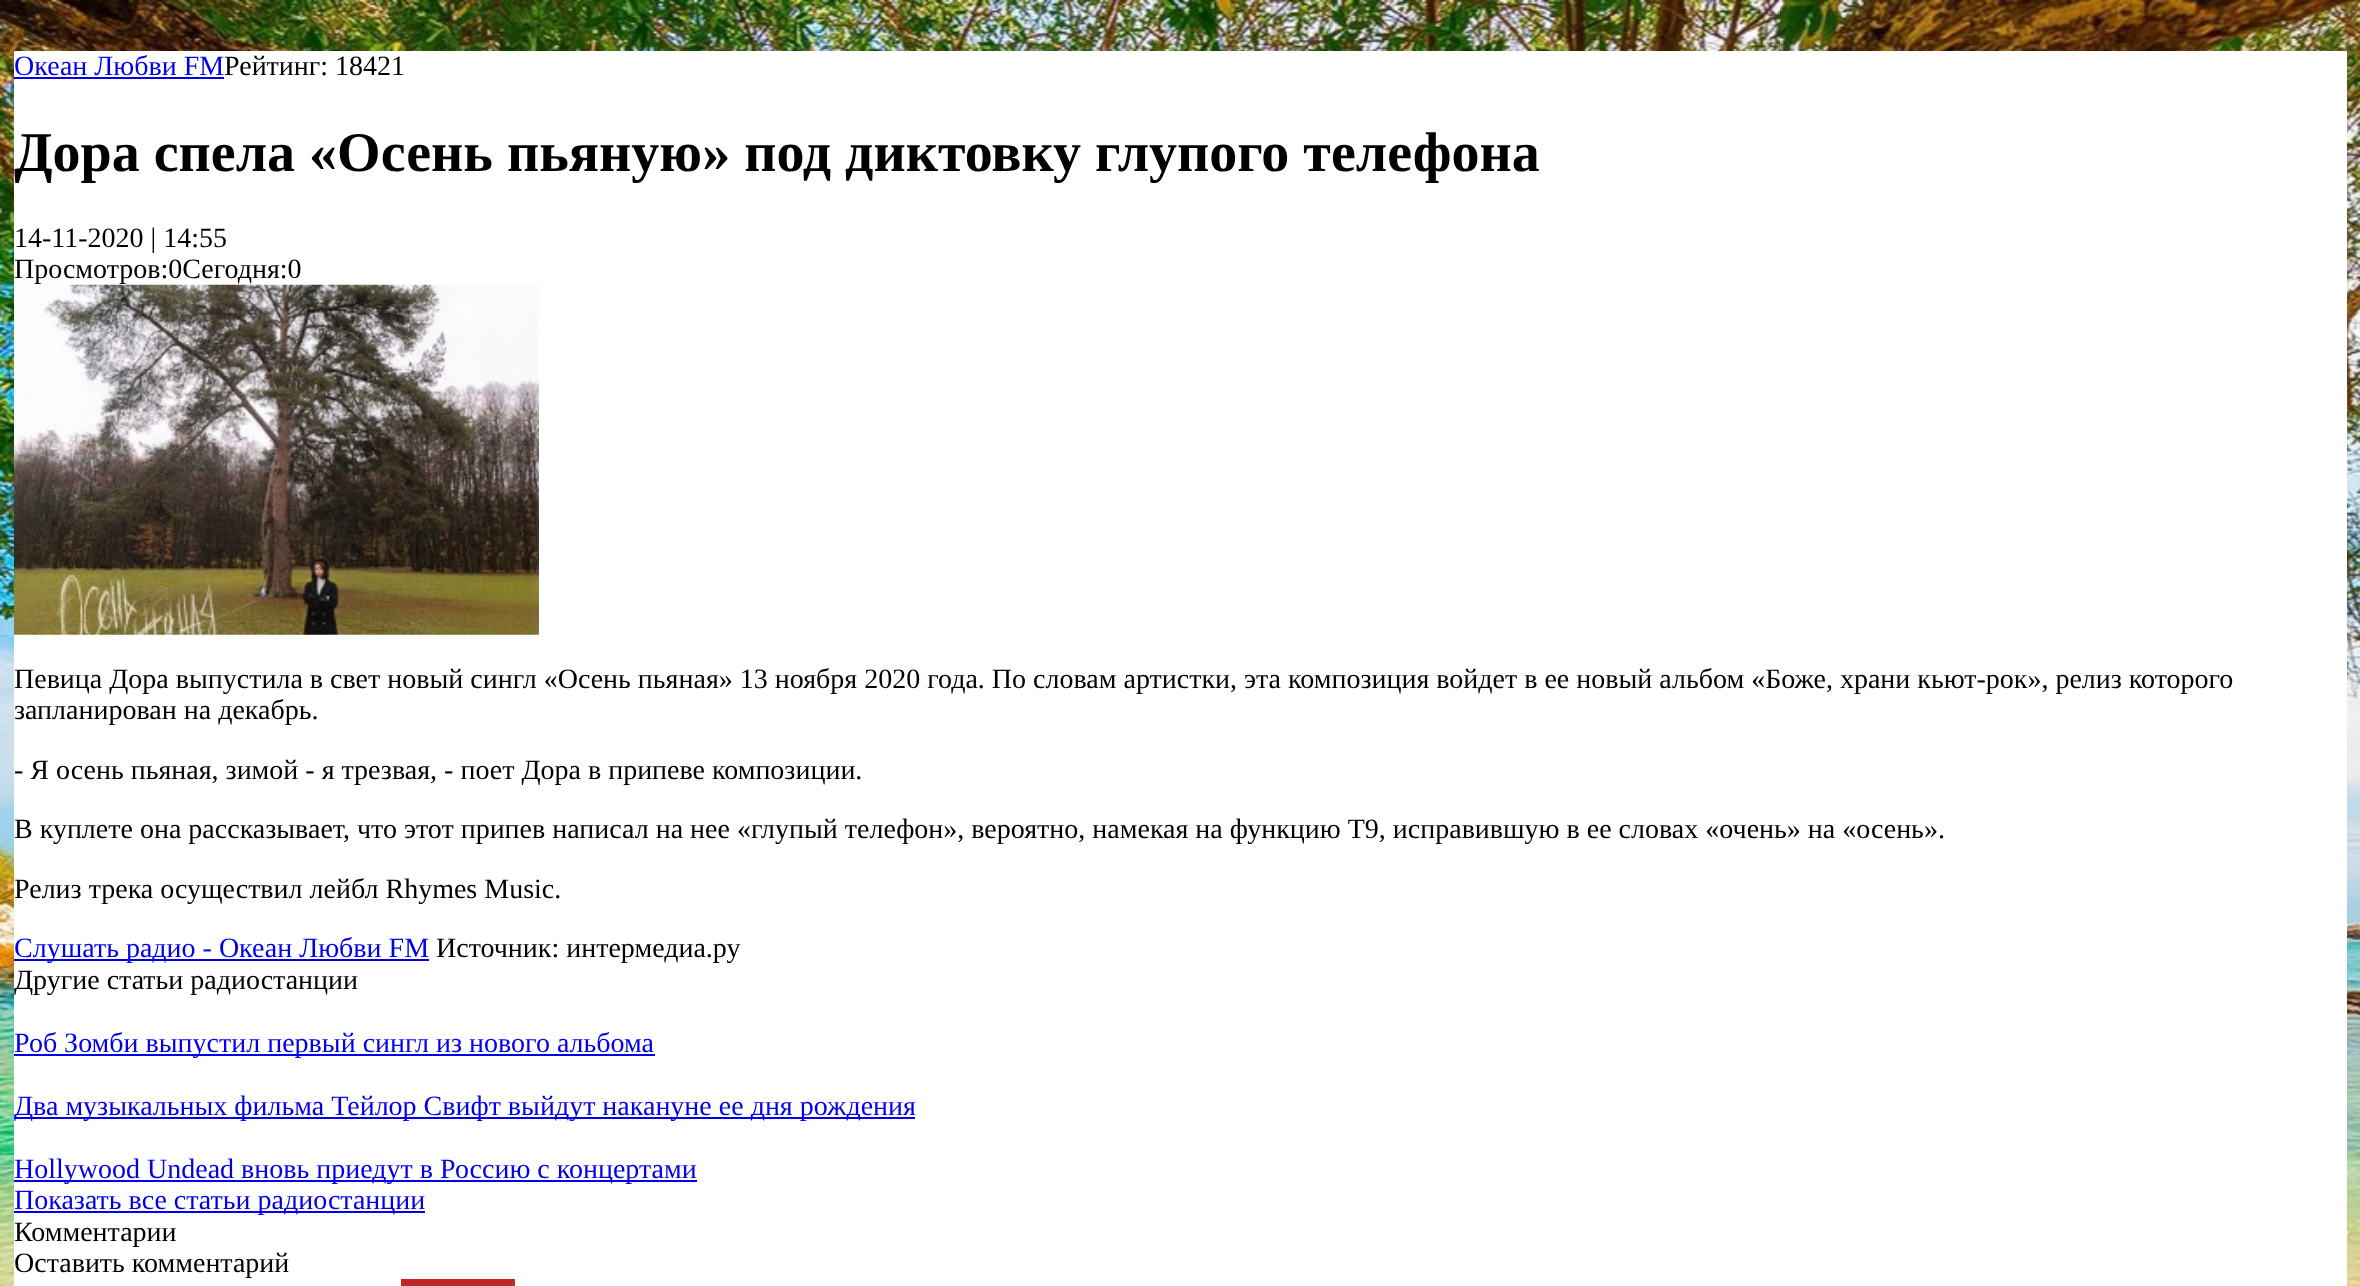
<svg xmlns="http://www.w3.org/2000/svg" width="2360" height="1286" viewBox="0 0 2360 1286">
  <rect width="100%" height="100%" fill="#fff"/>
  <image x="0" y="0" width="2360" height="1286" href="img/1.png"/>
  <path d="M14 51h2333v1235H14z" fill="#fff"/>
  <path d="M14 77h210v2H14z" fill="#00e"/>
  <image x="14" y="284" width="525" height="351" href="img/2.png"/>
  <path d="M14 959h415v2H14z" fill="#00e"/>
  <path d="M14 1054h641v2H14z" fill="#00e"/>
  <path d="M14 1117h901v2H14z" fill="#00e"/>
  <path d="M14 1180h683v2H14z" fill="#00e"/>
  <path d="M14 1211h411v2H14z" fill="#00e"/>
  <path d="M401 1279h114v7H401z" fill="#c1262a"/>
  <text x="14" y="75" font-family="Liberation Serif" font-size="28" fill="#00e">Океан Любви FM</text>
  <text x="224" y="75" font-family="Liberation Serif" font-size="28" fill="#000">Рейтинг: 18421</text>
  <text x="14" y="171" font-family="Liberation Serif" font-size="56" font-weight="bold" fill="#000">Дора спела «Осень пьяную» под диктовку глупого телефона</text>
  <g font-family="Liberation Serif" font-size="28" fill="#000">
    <text x="14" y="247">14-11-2020 | 14:55</text>
    <text x="14" y="278">Просмотров:0Сегодня:0</text>
    <text x="14" y="688">Певица Дора выпустила в свет новый сингл «Осень пьяная» 13 ноября 2020 года. По словам артистки, эта композиция войдет в ее новый альбом «Боже, храни кьют-рок», релиз которого</text>
    <text x="14" y="719">запланирован на декабрь.</text>
    <text x="14" y="779">- Я осень пьяная, зимой - я трезвая, - поет Дора в припеве композиции.</text>
    <text x="14" y="838">В куплете она рассказывает, что этот припев написал на нее «глупый телефон», вероятно, намекая на функцию Т9, исправившую в ее словах «очень» на «осень».</text>
    <text x="14" y="898">Релиз трека осуществил лейбл Rhymes Music.</text>
  </g>
  <text x="14" y="957" font-family="Liberation Serif" font-size="28" fill="#00e">Слушать радио - Океан Любви FM</text>
  <g font-family="Liberation Serif" font-size="28" fill="#000">
    <text x="436" y="957">Источник: интермедиа.ру</text>
    <text x="14" y="989">Другие статьи радиостанции</text>
  </g>
  <g font-family="Liberation Serif" font-size="28" fill="#00e">
    <text x="14" y="1052">Роб Зомби выпустил первый сингл из нового альбома</text>
    <text x="14" y="1115">Два музыкальных фильма Тейлор Свифт выйдут накануне ее дня рождения</text>
    <text x="14" y="1178">Hollywood Undead вновь приедут в Россию с концертами</text>
    <text x="14" y="1209">Показать все статьи радиостанции</text>
  </g>
  <g font-family="Liberation Serif" font-size="28" fill="#000">
    <text x="14" y="1241">Комментарии</text>
    <text x="14" y="1272">Оставить комментарий</text>
  </g>
</svg>
